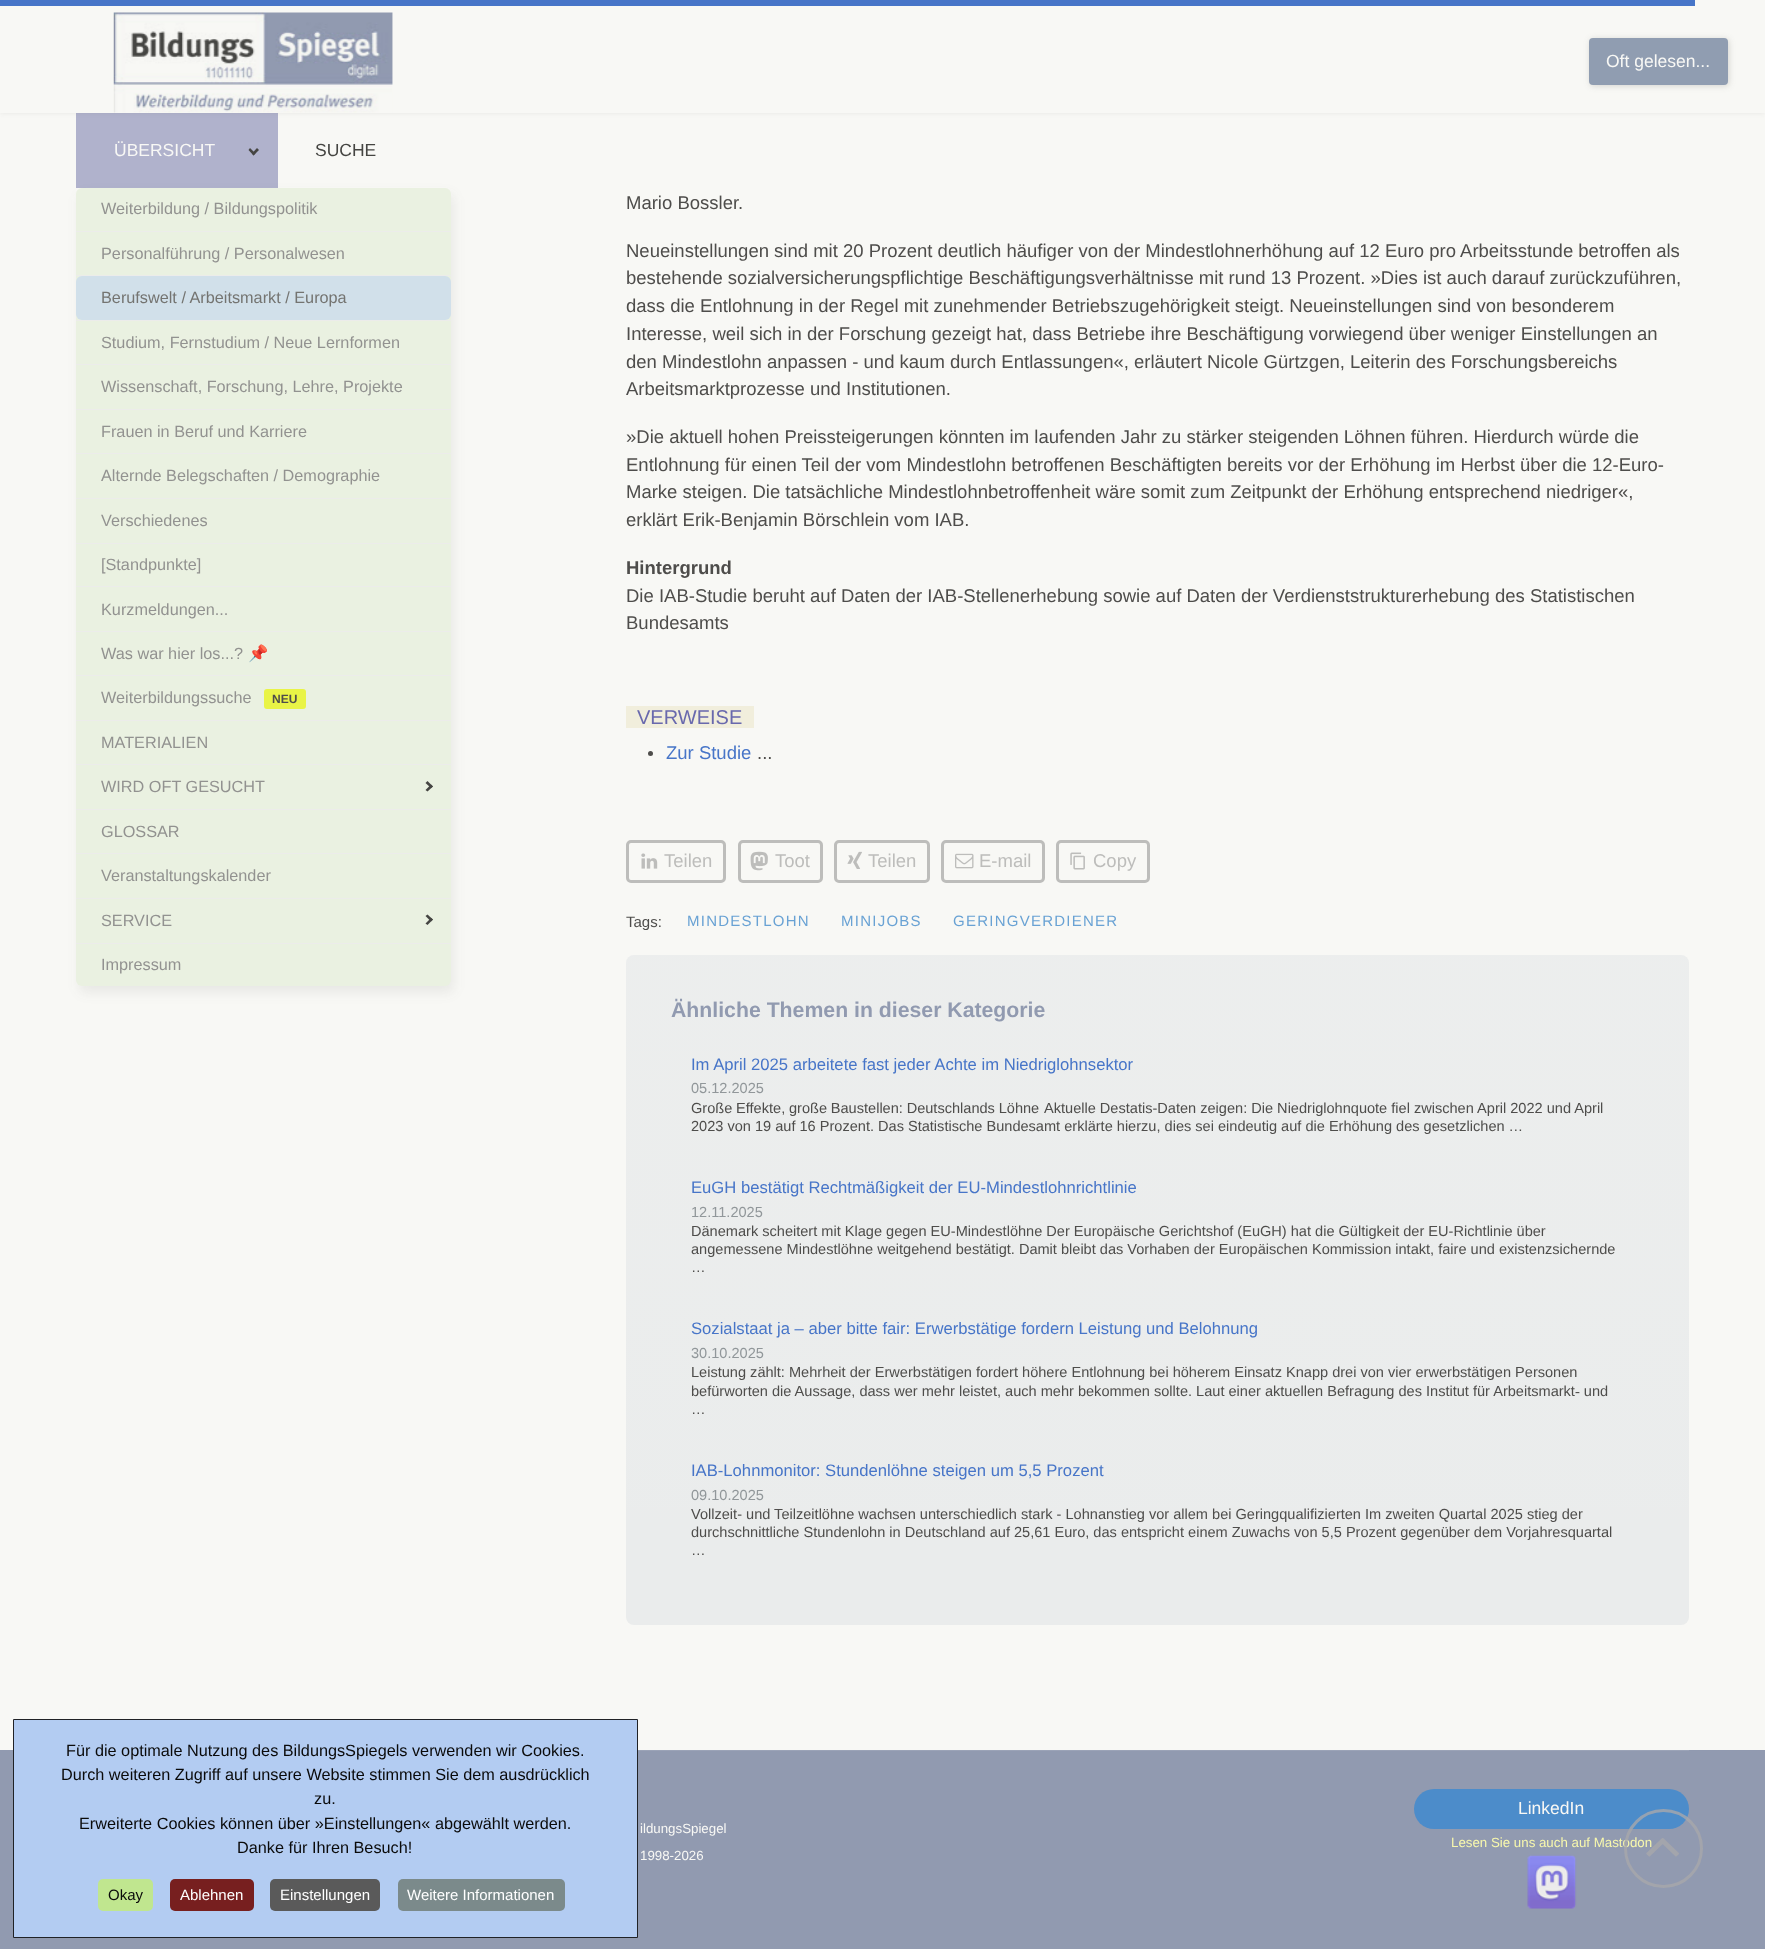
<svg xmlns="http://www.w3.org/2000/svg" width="1765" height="1949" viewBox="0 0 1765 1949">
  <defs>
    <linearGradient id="g1" gradientUnits="userSpaceOnUse" x1="1158" y1="955" x2="1158" y2="1625"><stop offset="0" stop-color="#f8f8f5" stop-opacity="0.15"/><stop offset="1" stop-color="#f8f8f5" stop-opacity="0"/></linearGradient>
  </defs>
  <rect width="100%" height="100%" fill="#f8f8f5"/>
  <path d="M76 113h202v75H76z" fill="#b0b2cc"/>
  <path d="M0 0h1765v113H0z" fill="#4545421a" filter="blur(2.5px)"/>
  <path d="M0 0h1765v113H0z" fill="#f8f8f5"/>
  <path d="M0 0h1695v6H0z" fill="#4775c8"/>
  <rect x="1590" y="39" width="139" height="47" rx="4" fill="#45454233" filter="blur(3px)"/>
  <rect x="1589" y="38" width="139" height="47" rx="4" fill="#909db1"/>
  <image x="113" y="12" width="280" height="101" href="img/1.png"/>
  <path d="M257 148L259 150L253.5 155.5L252 153.5Z" fill="#454542"/>
  <path d="M250 148L255.5 153.5L253.5 155.5L248.5 150Z" fill="#454542"/>
  <rect x="79" y="194" width="375" height="799" rx="6" fill="#45454214" filter="blur(6px)"/>
  <rect x="76" y="188" width="375" height="798" rx="6" fill="#eaf1e1"/>
  <path d="M76 231h375v1H76z" fill="#ececea"/>
  <path d="M76 275h375v1H76z" fill="#ececea"/>
  <rect x="76" y="276" width="375" height="44" rx="6" fill="#d1e0ea"/>
  <path d="M76 320h375v1H76z" fill="#ececea"/>
  <path d="M76 364h375v1H76z" fill="#ececea"/>
  <path d="M76 409h375v1H76z" fill="#ececea"/>
  <path d="M76 453h375v1H76z" fill="#ececea"/>
  <path d="M76 498h375v1H76z" fill="#ececea"/>
  <path d="M76 543h375v1H76z" fill="#ececea"/>
  <path d="M76 586h375v1H76z" fill="#ececea"/>
  <path d="M76 631h375v1H76z" fill="#ececea"/>
  <path d="M76 675h375v1H76z" fill="#ececea"/>
  <rect x="264" y="689" width="42" height="20" rx="3" fill="#e9f446"/>
  <path d="M76 720h375v1H76z" fill="#ececea"/>
  <path d="M76 764h375v1H76z" fill="#ececea"/>
  <path d="M425.5 783L427.5 781L433 786.5L431 788Z" fill="#454542"/>
  <path d="M425.5 790L431 784.5L433 786.5L427.5 791.5Z" fill="#454542"/>
  <path d="M76 809h375v1H76z" fill="#ececea"/>
  <path d="M76 853h375v1H76z" fill="#ececea"/>
  <path d="M76 898h375v1H76z" fill="#ececea"/>
  <path d="M425.5 916L427.5 914.5L433 919.5L431 921.5Z" fill="#454542"/>
  <path d="M425.5 923.5L431 918L433 919.5L427.5 925Z" fill="#454542"/>
  <path d="M76 943h375v1H76z" fill="#ececea"/>
  <path d="M626 706h128v22H626z" fill="#f1eedc"/>
  <circle cx="650.5" cy="753.5" r="2.5" fill="#4e4d4b"/>
  <rect x="627.5" y="841.5" width="97" height="40" rx="3.5" fill="none" stroke="#bdbdbb" stroke-width="3"/>
  <image x="641" y="853" width="17" height="16" href="img/2.png"/>
  <rect x="739.5" y="841.5" width="82" height="40" rx="3.5" fill="none" stroke="#bdbdbb" stroke-width="3"/>
  <image x="750" y="851" width="18" height="20" href="img/3.png"/>
  <rect x="835.5" y="841.5" width="93" height="40" rx="3.5" fill="none" stroke="#bdbdbb" stroke-width="3"/>
  <image x="847" y="851" width="15" height="18" href="img/4.png"/>
  <rect x="942.5" y="841.5" width="101" height="40" rx="3.5" fill="none" stroke="#bdbdbb" stroke-width="3"/>
  <image x="955" y="853" width="19" height="16" href="img/5.png"/>
  <rect x="1057.5" y="841.5" width="91" height="40" rx="3.5" fill="none" stroke="#bdbdbb" stroke-width="3"/>
  <image x="1070" y="852" width="15" height="18" href="img/6.png"/>
  <rect x="626" y="955" width="1063" height="670" rx="8" fill="#eaecec"/>
  <rect x="626" y="955" width="1063" height="670" rx="8" fill="url(#g1)"/>
  <path d="M0 1750h1765v199H0z" fill="#919ab0"/>
  <path d="M638 1750h1051v1H638z" fill="#9ba3b7"/>
  <rect x="1414" y="1789" width="275" height="40" rx="20" fill="#4c8cca"/>
  <image x="1527" y="1854" width="50" height="55" href="img/7.png"/>
  <path d="M13.5 1719.5h624v218H13.5z" fill="#b3ccf2" stroke="#202226"/>
  <rect x="98" y="1879" width="55" height="32" rx="5" fill="#c0e68f"/>
  <rect x="170" y="1879" width="84" height="32" rx="5" fill="#771f1f"/>
  <rect x="270" y="1879" width="110" height="32" rx="5" fill="#5a5a5a"/>
  <rect x="398" y="1879" width="167" height="32" rx="5" fill="#7b8a8b"/>
  <g font-family="Liberation Sans" font-size="17.5" fill="#f8f8f5">
    <text x="1606" y="67">Oft gelesen...</text>
    <text x="114" y="156">ÜBERSICHT</text>
  </g>
  <g font-family="Liberation Sans" font-size="16.25" fill="#929290">
    <text x="101" y="214">Weiterbildung / Bildungspolitik</text>
    <text x="101" y="259">Personalführung / Personalwesen</text>
  </g>
  <text x="101" y="303" font-family="Liberation Sans" font-size="16.25" fill="#747471">Berufswelt / Arbeitsmarkt / Europa</text>
  <g font-family="Liberation Sans" font-size="16.25" fill="#929290">
    <text x="101" y="348">Studium, Fernstudium / Neue Lernformen</text>
    <text x="101" y="392">Wissenschaft, Forschung, Lehre, Projekte</text>
    <text x="101" y="437">Frauen in Beruf und Karriere</text>
    <text x="101" y="481">Alternde Belegschaften / Demographie</text>
    <text x="101" y="526">Verschiedenes</text>
    <text x="101" y="570">[Standpunkte]</text>
    <text x="101" y="615">Kurzmeldungen...</text>
    <text x="101" y="659">Was war hier los...?</text>
  </g>
  <text x="248" y="659" font-family="Noto Color Emoji" font-size="16.25" fill="#929290">📌</text>
  <text x="101" y="703" font-family="Liberation Sans" font-size="16.25" fill="#929290">Weiterbildungssuche</text>
  <text x="272" y="703" font-family="Liberation Sans" font-size="12" font-weight="bold" fill="#4e4d4b">NEU</text>
  <g font-family="Liberation Sans" font-size="16.25" fill="#929290">
    <text x="101" y="748">MATERIALIEN</text>
    <text x="101" y="792">WIRD OFT GESUCHT</text>
    <text x="101" y="837">GLOSSAR</text>
    <text x="101" y="881">Veranstaltungskalender</text>
    <text x="101" y="926">SERVICE</text>
    <text x="101" y="970">Impressum</text>
  </g>
  <text x="315" y="156" font-family="Liberation Sans" font-size="17.5" fill="#454542">SUCHE</text>
  <g font-family="Liberation Sans" font-size="18.5" fill="#4e4d4b">
    <text x="626" y="209">Mario Bossler.</text>
    <text x="626" y="257">Neueinstellungen sind mit 20 Prozent deutlich häufiger von der Mindestlohnerhöhung auf 12 Euro pro Arbeitsstunde betroffen als</text>
    <text x="626" y="284">bestehende sozialversicherungspflichtige Beschäftigungsverhältnisse mit rund 13 Prozent. »Dies ist auch darauf zurückzuführen,</text>
    <text x="626" y="312">dass die Entlohnung in der Regel mit zunehmender Betriebszugehörigkeit steigt. Neueinstellungen sind von besonderem</text>
    <text x="626" y="340">Interesse, weil sich in der Forschung gezeigt hat, dass Betriebe ihre Beschäftigung vorwiegend über weniger Einstellungen an</text>
    <text x="626" y="368">den Mindestlohn anpassen - und kaum durch Entlassungen«, erläutert Nicole Gürtzgen, Leiterin des Forschungsbereichs</text>
    <text x="626" y="395">Arbeitsmarktprozesse und Institutionen.</text>
    <text x="626" y="443">»Die aktuell hohen Preissteigerungen könnten im laufenden Jahr zu stärker steigenden Löhnen führen. Hierdurch würde die</text>
    <text x="626" y="471">Entlohnung für einen Teil der vom Mindestlohn betroffenen Beschäftigten bereits vor der Erhöhung im Herbst über die 12-Euro-</text>
    <text x="626" y="498">Marke steigen. Die tatsächliche Mindestlohnbetroffenheit wäre somit zum Zeitpunkt der Erhöhung entsprechend niedriger«,</text>
    <text x="626" y="526">erklärt Erik-Benjamin Börschlein vom IAB.</text>
  </g>
  <text x="626" y="574" font-family="Liberation Sans" font-size="18.5" font-weight="bold" fill="#4e4d4b">Hintergrund</text>
  <g font-family="Liberation Sans" font-size="18.5" fill="#4e4d4b">
    <text x="626" y="602">Die IAB-Studie beruht auf Daten der IAB-Stellenerhebung sowie auf Daten der Verdienststrukturerhebung des Statistischen</text>
    <text x="626" y="629">Bundesamts</text>
  </g>
  <text x="637" y="724" font-family="Liberation Sans" font-size="20" fill="#6969ad">VERWEISE</text>
  <text x="666" y="759" font-family="Liberation Sans" font-size="18.5" fill="#4775c8">Zur Studie</text>
  <text x="757" y="759" font-family="Liberation Sans" font-size="18.5" fill="#4e4d4b">...</text>
  <g font-family="Liberation Sans" font-size="18.5" fill="#bdbdbb">
    <text x="664" y="867">Teilen</text>
    <text x="775" y="867">Toot</text>
    <text x="868" y="867">Teilen</text>
    <text x="979" y="867">E-mail</text>
    <text x="1093" y="867">Copy</text>
  </g>
  <text x="626" y="927" font-family="Liberation Sans" font-size="15" fill="#4e4d4b">Tags:</text>
  <g font-family="Liberation Sans" font-size="15" letter-spacing="1.25" fill="#69a2d4">
    <text x="687" y="926">MINDESTLOHN</text>
    <text x="841" y="926">MINIJOBS</text>
    <text x="953" y="926">GERINGVERDIENER</text>
  </g>
  <text x="671" y="1017" font-family="Liberation Sans" font-size="21.25" font-weight="bold" fill="#919ab0">Ähnliche Themen in dieser Kategorie</text>
  <text x="691" y="1070" font-family="Liberation Sans" font-size="16.65" fill="#4775c8">Im April 2025 arbeitete fast jeder Achte im Niedriglohnsektor</text>
  <text x="691" y="1093" font-family="Liberation Sans" font-size="14.57" fill="#91979a">05.12.2025</text>
  <g font-family="Liberation Sans" font-size="14.57" fill="#4e4d4b">
    <text x="691" y="1113" word-spacing="-0.25">Große Effekte, große Baustellen: Deutschlands Löhne</text>
    <text x="1044" y="1113">Aktuelle Destatis-Daten zeigen: Die Niedriglohnquote fiel zwischen April 2022 und April</text>
    <text x="691" y="1131">2023 von 19 auf 16 Prozent. Das Statistische Bundesamt erklärte hierzu, dies sei eindeutig auf die Erhöhung des gesetzlichen …</text>
  </g>
  <text x="691" y="1193" font-family="Liberation Sans" font-size="16.65" fill="#4775c8">EuGH bestätigt Rechtmäßigkeit der EU-Mindestlohnrichtlinie</text>
  <text x="691" y="1217" font-family="Liberation Sans" font-size="14.57" fill="#91979a">12.11.2025</text>
  <g font-family="Liberation Sans" font-size="14.57" fill="#4e4d4b">
    <text x="691" y="1236">Dänemark scheitert mit Klage gegen EU-Mindestlöhne Der Europäische Gerichtshof (EuGH) hat die Gültigkeit der EU-Richtlinie über</text>
    <text x="691" y="1254">angemessene Mindestlöhne weitgehend bestätigt. Damit bleibt das Vorhaben der Europäischen Kommission intakt, faire und existenzsichernde</text>
    <text x="691" y="1272">…</text>
  </g>
  <text x="691" y="1334" font-family="Liberation Sans" font-size="16.65" fill="#4775c8">Sozialstaat ja – aber bitte fair: Erwerbstätige fordern Leistung und Belohnung</text>
  <text x="691" y="1358" font-family="Liberation Sans" font-size="14.57" fill="#91979a">30.10.2025</text>
  <g font-family="Liberation Sans" font-size="14.57" fill="#4e4d4b">
    <text x="691" y="1377">Leistung zählt: Mehrheit der Erwerbstätigen fordert höhere Entlohnung bei höherem Einsatz Knapp drei von vier erwerbstätigen Personen</text>
    <text x="691" y="1396">befürworten die Aussage, dass wer mehr leistet, auch mehr bekommen sollte. Laut einer aktuellen Befragung des Institut für Arbeitsmarkt‑ und</text>
    <text x="691" y="1414">…</text>
  </g>
  <text x="691" y="1476" font-family="Liberation Sans" font-size="16.65" fill="#4775c8">IAB-Lohnmonitor: Stundenlöhne steigen um 5,5 Prozent</text>
  <text x="691" y="1500" font-family="Liberation Sans" font-size="14.57" fill="#91979a">09.10.2025</text>
  <g font-family="Liberation Sans" font-size="14.57" fill="#4e4d4b">
    <text x="691" y="1519">Vollzeit- und Teilzeitlöhne wachsen unterschiedlich stark - Lohnanstieg vor allem bei Geringqualifizierten Im zweiten Quartal 2025 stieg der</text>
    <text x="691" y="1537">durchschnittliche Stundenlohn in Deutschland auf 25,61 Euro, das entspricht einem Zuwachs von 5,5 Prozent gegenüber dem Vorjahresquartal</text>
    <text x="691" y="1555">…</text>
  </g>
  <g font-family="Liberation Sans" font-size="13.3" fill="#f8f8f5">
    <text x="640" y="1833">ildungsSpiegel</text>
    <text x="640" y="1860">1998-2026</text>
  </g>
  <text x="1518" y="1814" font-family="Liberation Sans" font-size="17.5" fill="#f8f8f5">LinkedIn</text>
  <text x="1451" y="1847" font-family="Liberation Sans" font-size="13.3" fill="#f8f8ad">Lesen Sie uns auch auf Mastodon</text>
  <g font-family="Liberation Sans" font-size="16.25" fill="#0a0a0a">
    <text x="66" y="1756">Für die optimale Nutzung des BildungsSpiegels verwenden wir Cookies.</text>
    <text x="61" y="1780">Durch weiteren Zugriff auf unsere Website stimmen Sie dem ausdrücklich</text>
    <text x="314" y="1804">zu.</text>
    <text x="79" y="1829">Erweiterte Cookies können über »Einstellungen« abgewählt werden.</text>
    <text x="237" y="1853">Danke für Ihren Besuch!</text>
  </g>
  <text x="108" y="1900" font-family="Liberation Sans" font-size="15" fill="#0a0a0a">Okay</text>
  <g font-family="Liberation Sans" font-size="15" fill="#fff">
    <text x="180" y="1900">Ablehnen</text>
    <text x="280" y="1900">Einstellungen</text>
    <text x="407" y="1900">Weitere Informationen</text>
  </g>
  <circle cx="1663.5" cy="1848.5" r="38" fill="none" stroke="#a7a7abcc" stroke-width="3"/>
  <image x="1646" y="1838" width="33" height="19" href="img/8.png"/>
</svg>
